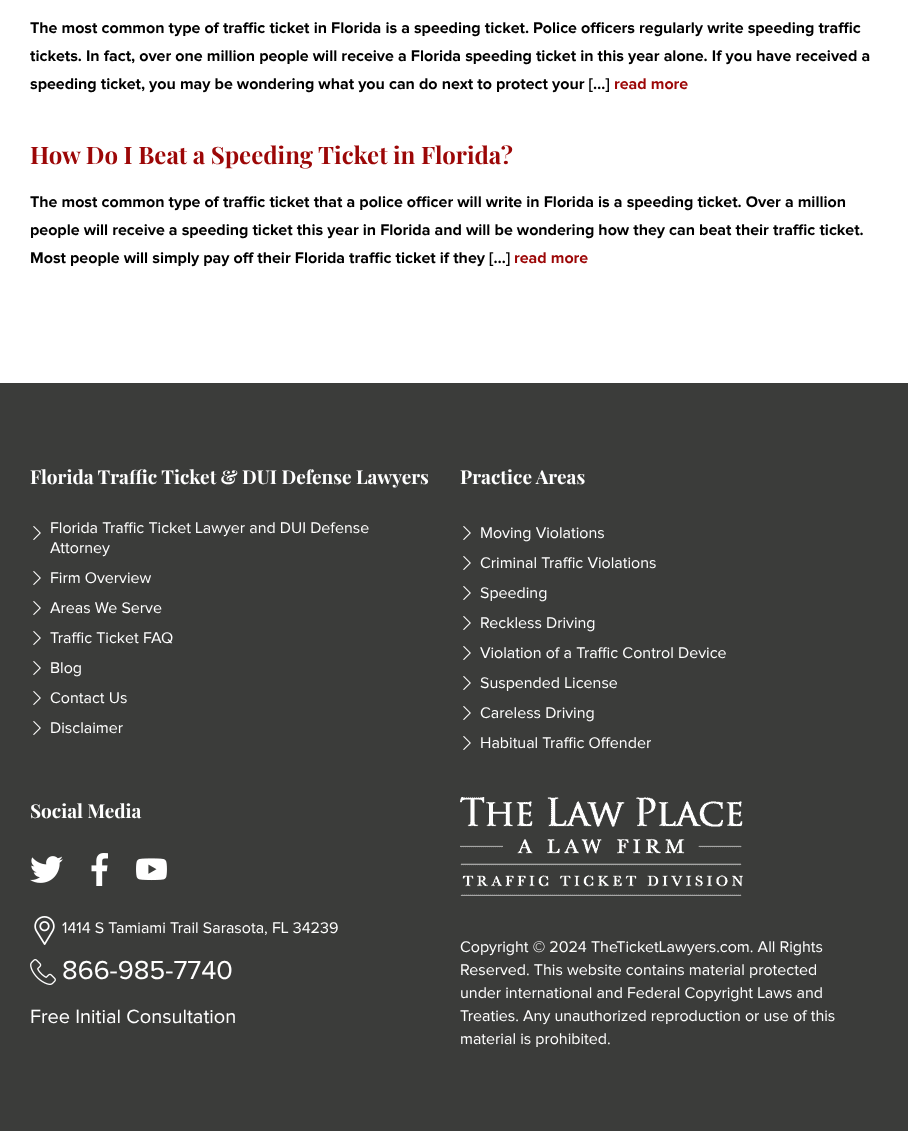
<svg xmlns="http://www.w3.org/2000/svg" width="908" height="1132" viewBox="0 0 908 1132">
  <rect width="100%" height="100%" fill="#fff"/>
  <path d="M0 383h908v748H0z" fill="#3b3c3a"/>
  <image x="33" y="526" width="8" height="14" href="img/1.png"/>
  <image x="33" y="571" width="8" height="14" href="img/1.png"/>
  <image x="33" y="601" width="8" height="14" href="img/1.png"/>
  <image x="33" y="631" width="8" height="14" href="img/1.png"/>
  <image x="33" y="661" width="8" height="14" href="img/1.png"/>
  <image x="33" y="691" width="8" height="14" href="img/1.png"/>
  <image x="33" y="721" width="8" height="14" href="img/1.png"/>
  <image x="463" y="526" width="8" height="14" href="img/1.png"/>
  <image x="463" y="556" width="8" height="14" href="img/1.png"/>
  <image x="463" y="586" width="8" height="14" href="img/1.png"/>
  <image x="463" y="616" width="8" height="14" href="img/1.png"/>
  <image x="463" y="646" width="8" height="14" href="img/1.png"/>
  <image x="463" y="676" width="8" height="14" href="img/1.png"/>
  <image x="463" y="706" width="8" height="14" href="img/1.png"/>
  <image x="463" y="736" width="8" height="14" href="img/1.png"/>
  <image x="30" y="856" width="33" height="27" href="img/2.png"/>
  <image x="91" y="853" width="17" height="33" href="img/3.png"/>
  <image x="136" y="858" width="31" height="23" href="img/4.png"/>
  <image x="34" y="916" width="21" height="29" href="img/5.png"/>
  <image x="30" y="959" width="26" height="26" href="img/6.png"/>
  <image x="460" y="797" width="283" height="99" href="img/7.png"/>
  <g font-family="Proxima Nova" font-size="16" font-weight="bold" fill="#000">
    <text x="30" y="33">The most common type of traffic ticket in Florida is a speeding ticket. Police officers regularly write speeding traffic</text>
    <text x="30" y="61">tickets. In fact, over one million people will receive a Florida speeding ticket in this year alone. If you have received a</text>
    <text x="30" y="89">speeding ticket, you may be wondering what you can do next to protect your […]</text>
  </g>
  <text x="614" y="89" font-family="Proxima Nova" font-size="16" font-weight="bold" fill="#9c0707">read more</text>
  <text x="30" y="164" font-family="Playfair Display" font-size="24" font-weight="bold" fill="#9c0707">How Do I Beat a Speeding Ticket in Florida?</text>
  <g font-family="Proxima Nova" font-size="16" font-weight="bold" fill="#000">
    <text x="30" y="207">The most common type of traffic ticket that a police officer will write in Florida is a speeding ticket. Over a million</text>
    <text x="30" y="235">people will receive a speeding ticket this year in Florida and will be wondering how they can beat their traffic ticket.</text>
    <text x="30" y="263">Most people will simply pay off their Florida traffic ticket if they […]</text>
  </g>
  <text x="514" y="263" font-family="Proxima Nova" font-size="16" font-weight="bold" fill="#9c0707">read more</text>
  <text x="30" y="484" font-family="Playfair Display" font-size="19" font-weight="bold" fill="#fff">Florida Traffic Ticket &amp; DUI Defense Lawyers</text>
  <g font-family="Proxima Nova" font-size="16" fill="#fff">
    <text x="50" y="533">Florida Traffic Ticket Lawyer and DUI Defense</text>
    <text x="50" y="553">Attorney</text>
    <text x="50" y="583">Firm Overview</text>
    <text x="50" y="613">Areas We Serve</text>
    <text x="50" y="643">Traffic Ticket FAQ</text>
    <text x="50" y="673">Blog</text>
    <text x="50" y="703">Contact Us</text>
    <text x="50" y="733">Disclaimer</text>
  </g>
  <text x="460" y="484" font-family="Playfair Display" font-size="19" font-weight="bold" fill="#fff">Practice Areas</text>
  <g font-family="Proxima Nova" font-size="16" fill="#fff">
    <text x="480" y="538">Moving Violations</text>
    <text x="480" y="568">Criminal Traffic Violations</text>
    <text x="480" y="598">Speeding</text>
    <text x="480" y="628">Reckless Driving</text>
    <text x="480" y="658">Violation of a Traffic Control Device</text>
    <text x="480" y="688">Suspended License</text>
    <text x="480" y="718">Careless Driving</text>
    <text x="480" y="748">Habitual Traffic Offender</text>
  </g>
  <text x="30" y="818" font-family="Playfair Display" font-size="19" font-weight="bold" fill="#fff">Social Media</text>
  <text x="62" y="933" font-family="Proxima Nova" font-size="16" fill="#fff">1414 S Tamiami Trail Sarasota, FL 34239</text>
  <text x="62" y="979" font-family="Proxima Nova" font-size="27" fill="#fff">866-985-7740</text>
  <text x="30" y="1023" font-family="Proxima Nova" font-size="20" fill="#fff">Free Initial Consultation</text>
  <g font-family="Proxima Nova" font-size="16" fill="#fff">
    <text x="460" y="952">Copyright © 2024 TheTicketLawyers.com. All Rights</text>
    <text x="460" y="975">Reserved. This website contains material protected</text>
    <text x="460" y="998">under international and Federal Copyright Laws and</text>
    <text x="460" y="1021">Treaties. Any unauthorized reproduction or use of this</text>
    <text x="460" y="1044">material is prohibited.</text>
  </g>
</svg>
